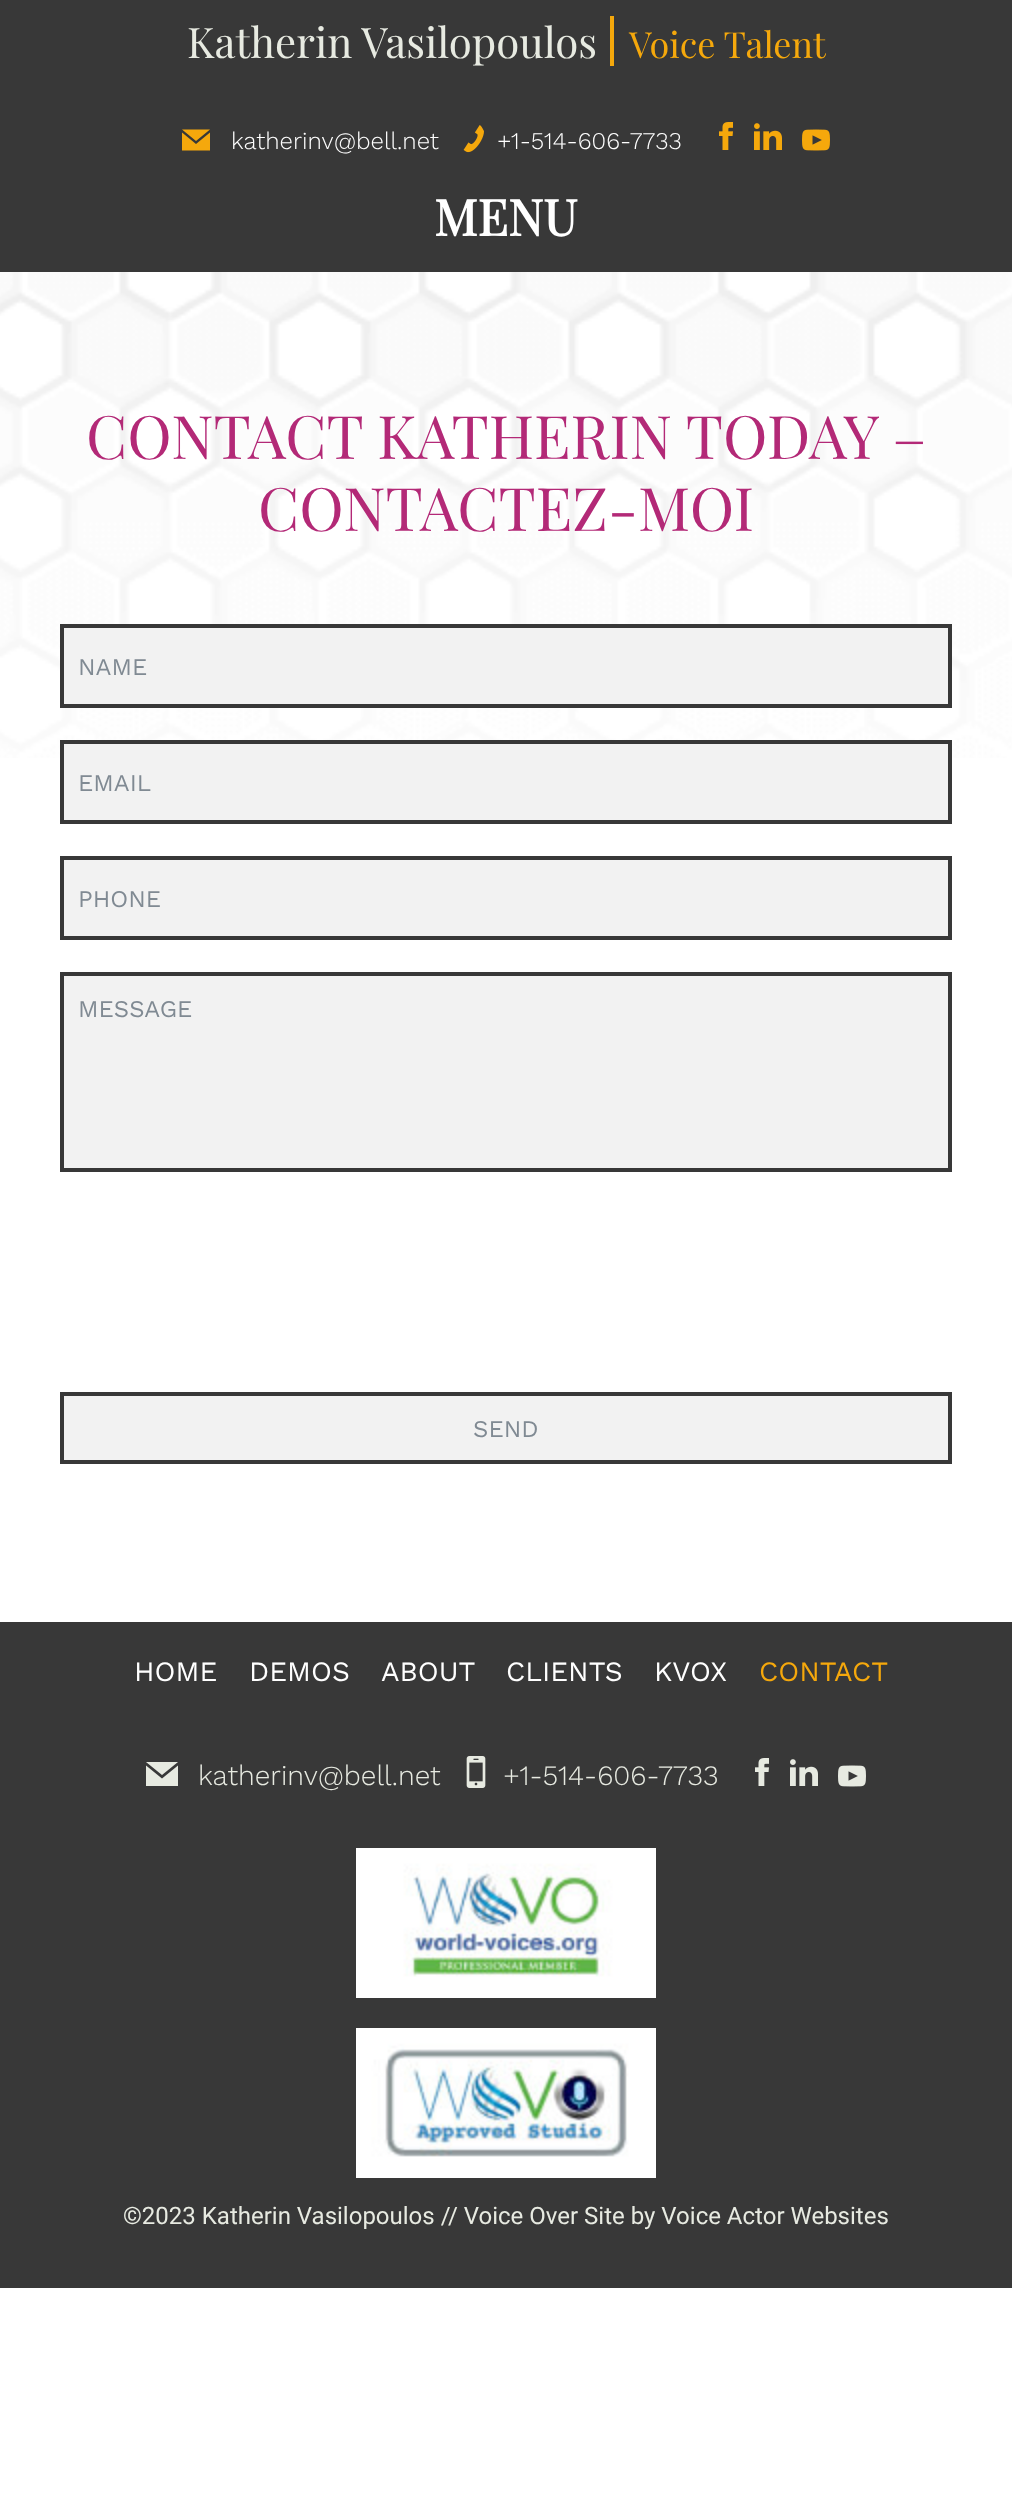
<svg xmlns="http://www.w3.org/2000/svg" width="1012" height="2513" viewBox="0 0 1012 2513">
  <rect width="100%" height="100%" fill="#fff"/>
  <path d="M0 0h1012v272H0z" fill="#383838"/>
  <path d="M610 16h4v50H610z" fill="#f5a80c"/>
  <path d="M196 141L182 129.5H210ZM196 144L182 132.5V150.5H210V132.5Z" fill="#f5a80c"/>
  <image x="463" y="125" width="21" height="28" href="img/1.png"/>
  <image x="719" y="122" width="14" height="28" href="img/2.png"/>
  <image x="754" y="123" width="28" height="27" href="img/3.png"/>
  <image x="802" y="129" width="28" height="22" href="img/4.png"/>
  <image x="0" y="272" width="1012" height="486" href="img/5.png"/>
  <path d="M62 626h888v80H62z" fill="#f2f2f2" stroke="#383838" stroke-width="4"/>
  <path d="M62 742h888v80H62z" fill="#f2f2f2" stroke="#383838" stroke-width="4"/>
  <path d="M62 858h888v80H62z" fill="#f2f2f2" stroke="#383838" stroke-width="4"/>
  <path d="M62 974h888v196H62z" fill="#f2f2f2" stroke="#383838" stroke-width="4"/>
  <path d="M62 1394h888v68H62z" fill="#f2f2f2" stroke="#383838" stroke-width="4"/>
  <path d="M0 1622h1012v666H0z" fill="#383838"/>
  <path d="M162 1775L146 1762H178ZM162 1778.5L146 1765.5V1786H178V1765.5Z" fill="#e7eae1"/>
  <image x="466" y="1756" width="20" height="32" href="img/6.png"/>
  <image x="755" y="1758" width="14" height="28" href="img/7.png"/>
  <image x="790" y="1759" width="28" height="27" href="img/8.png"/>
  <image x="838" y="1765" width="28" height="22" href="img/9.png"/>
  <image x="356" y="1848" width="300" height="150" href="img/10.png"/>
  <image x="356" y="2028" width="300" height="150" href="img/11.png"/>
  <text x="187" y="58" font-family="Playfair Display" font-size="42" fill="#e7eae1">Katherin Vasilopoulos</text>
  <text x="629" y="58" font-family="Playfair Display" font-size="36" fill="#f5a80c">Voice Talent</text>
  <g font-family="Work Sans" font-size="24" font-weight="300" fill="#fff">
    <text x="231" y="149">katherinv@bell.net</text>
    <text x="497" y="149">+1-514-606-7733</text>
  </g>
  <text x="434" y="236" font-family="Playfair Display" font-size="50" font-weight="bold" fill="#fff">MENU</text>
  <g font-family="Playfair Display" font-size="60" fill="#b32977">
    <text x="86" y="459">CONTACT KATHERIN TODAY –</text>
    <text x="258" y="531">CONTACTEZ-MOI</text>
  </g>
  <g font-family="Work Sans" font-size="24" fill="#808a93">
    <text x="78" y="675">NAME</text>
    <text x="78" y="791">EMAIL</text>
    <text x="78" y="907">PHONE</text>
    <text x="78" y="1017">MESSAGE</text>
    <text x="473" y="1437">SEND</text>
  </g>
  <g font-family="Work Sans" font-size="28" fill="#fff">
    <text x="134" y="1681">HOME</text>
    <text x="249" y="1681">DEMOS</text>
    <text x="381" y="1681">ABOUT</text>
    <text x="506" y="1681">CLIENTS</text>
    <text x="654" y="1681">KVOX</text>
  </g>
  <text x="759" y="1681" font-family="Work Sans" font-size="28" fill="#f5a80c">CONTACT</text>
  <g font-family="Work Sans" font-size="28" font-weight="300" fill="#e7eae1">
    <text x="198" y="1785">katherinv@bell.net</text>
    <text x="503" y="1785">+1-514-606-7733</text>
  </g>
  <text x="123" y="2224" font-family="Roboto" font-size="24" fill="#e7eae1">©2023 Katherin Vasilopoulos // Voice Over Site by Voice Actor Websites</text>
</svg>
